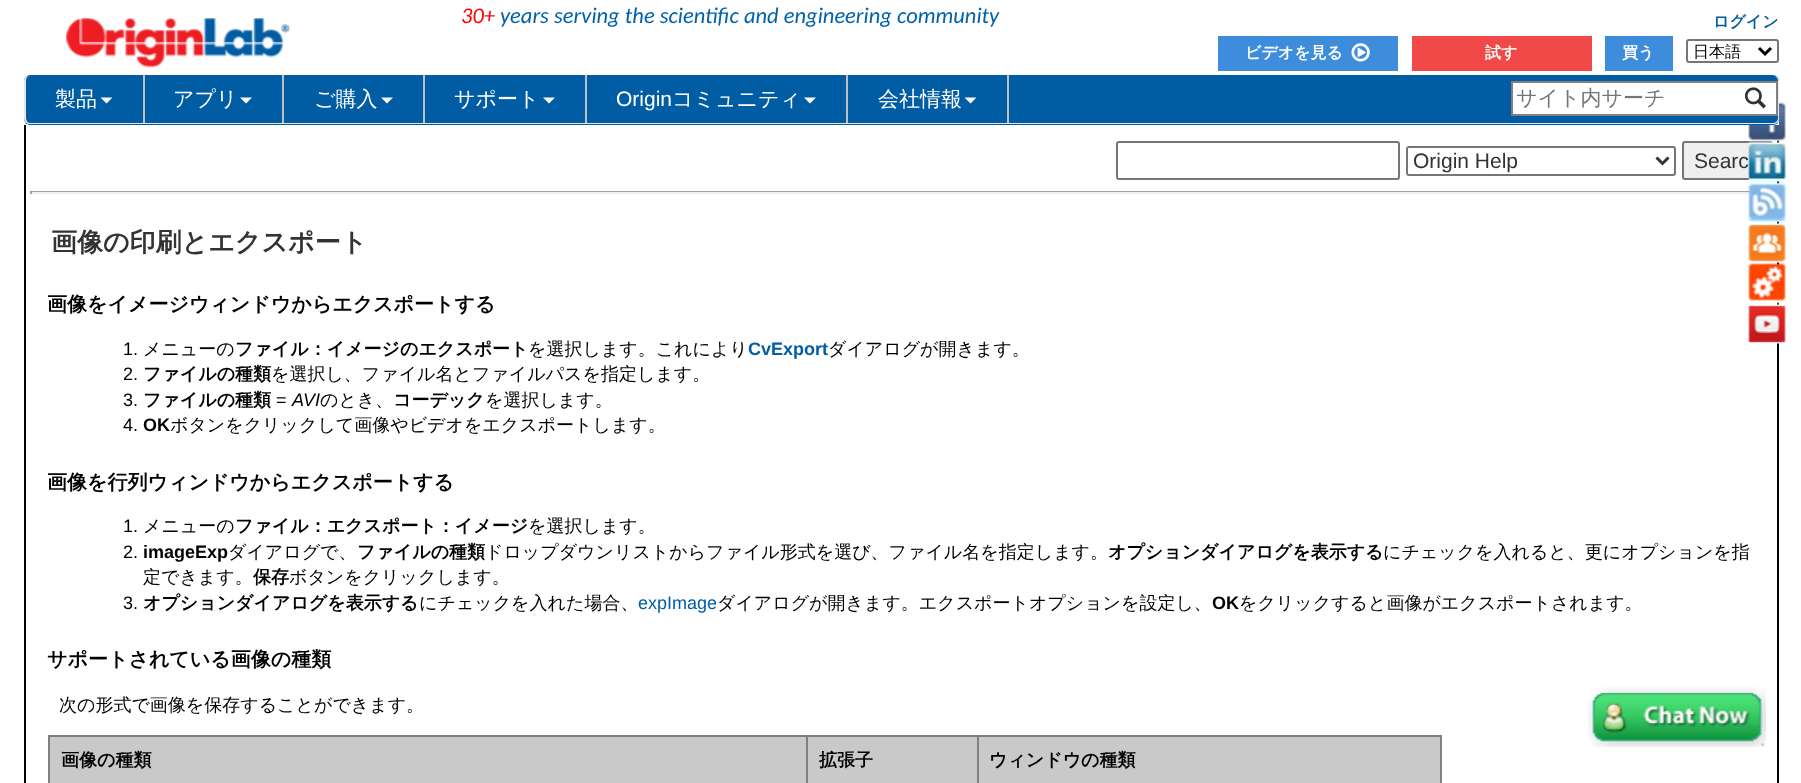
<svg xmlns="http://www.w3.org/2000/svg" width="1801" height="783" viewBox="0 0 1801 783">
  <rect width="100%" height="100%" fill="#fff"/>
  <path d="M25 60h1753v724H25z" fill="none" stroke="#000" stroke-width="2"/>
  <rect x="1683" y="142" width="89" height="37" rx="2" fill="#efefef" stroke="#767676" stroke-width="2"/>
  <image x="1748" y="101" width="39" height="41" href="img/4.png"/>
  <path d="M24 59h1755v66H24z" fill="#fff"/>
  <image x="65" y="18" width="226" height="50" href="img/1.png"/>
  <path d="M1218 36h180v35H1218z" fill="#3e8ddd"/>
  <image x="1351" y="43" width="19" height="19" href="img/2.png"/>
  <path d="M1412 36h180v35H1412z" fill="#f14947"/>
  <path d="M1605 36h68v35H1605z" fill="#3e8ddd"/>
  <rect x="1687" y="40" width="91" height="22" rx="2" fill="none" stroke="#767676" stroke-width="2"/>
  <path d="M1759 48L1765 54L1771 48" fill="none" stroke="#000" stroke-width="3"/>
  <rect x="24" y="75" width="1755" height="50" rx="6" fill="#005da4"/>
  <path d="M30 75H1773C1776 75 1779 78 1779 81V118C1779 122 1776 124 1773 124H30C27 124 24 122 24 118V81C24 78 27 75 30 75ZM30 75H1773C1775 75 1778 78 1778 81V118C1778 121 1775 123 1773 123H30C28 123 26 121 26 118V81C26 78 28 75 30 75Z" fill="#e7e7e7" fill-rule="evenodd"/>
  <path d="M143 75h2v48H143z" fill="#bfbfbf"/>
  <path d="M100.5 97.5H112.5L106.5 103.5Z" fill="#fff"/>
  <path d="M282 75h2v48H282z" fill="#bfbfbf"/>
  <path d="M240 97.5H252L246 103.5Z" fill="#fff"/>
  <path d="M423 75h2v48H423z" fill="#bfbfbf"/>
  <path d="M381 97.5H393L387 103.5Z" fill="#fff"/>
  <path d="M585 75h2v48H585z" fill="#bfbfbf"/>
  <path d="M543 97.5H555L549 103.5Z" fill="#fff"/>
  <path d="M846 75h2v48H846z" fill="#bfbfbf"/>
  <path d="M804 97.5H816L810 103.5Z" fill="#fff"/>
  <path d="M1007 75h2v48H1007z" fill="#bfbfbf"/>
  <path d="M964.5 97.5H976.5L970.5 103.5Z" fill="#fff"/>
  <path d="M1513 83h263v31H1513z" fill="#fff"/>
  <path d="M1511 81h267v2H1511z" fill="#808080"/>
  <path d="M1511 114h225v2H1511z" fill="#808080"/>
  <path d="M1511 81h2v35H1511z" fill="#808080"/>
  <path d="M1776 81h2v35H1776z" fill="#808080"/>
  <path d="M1736 114h42v2H1736z" fill="#808080"/>
  <image x="1744" y="87" width="22" height="22" href="img/3.png"/>
  <image x="1748" y="142" width="39" height="40" href="img/5.png"/>
  <path d="M30 191h1720v1H30z" fill="#9f9f9f"/>
  <path d="M30 192h1720v2H30z" fill="#eee"/>
  <image x="1748" y="182" width="39" height="41" href="img/6.png"/>
  <image x="1748" y="223" width="39" height="40" href="img/7.png"/>
  <image x="1748" y="263" width="39" height="41" href="img/8.png"/>
  <image x="1748" y="304" width="39" height="40" href="img/9.png"/>
  <rect x="1117" y="142" width="282" height="37" rx="2" fill="none" stroke="#767676" stroke-width="2"/>
  <rect x="1407" y="147" width="268" height="28" rx="2" fill="none" stroke="#767676" stroke-width="2"/>
  <path d="M1656.5 157.5L1662.5 163.5L1668.5 157.5" fill="none" stroke="#333" stroke-width="3"/>
  <path d="M30 191h2v3H30z" fill="#9f9f9f"/>
  <path d="M48 735h1394v2H48z" fill="#808080"/>
  <path d="M1440 735h2v48H1440z" fill="#808080"/>
  <path d="M48 735h2v48H48z" fill="#808080"/>
  <path d="M50 737h756v46H50z" fill="#c9c9c9"/>
  <path d="M808 737h169v46H808z" fill="#c9c9c9"/>
  <path d="M806 735h2v48H806z" fill="#808080"/>
  <path d="M979 737h461v46H979z" fill="#c9c9c9"/>
  <path d="M977 735h2v48H977z" fill="#808080"/>
  <image x="1588" y="687" width="178" height="60" href="img/10.png"/>
  <circle cx="1762.5" cy="744.5" r="1.5" fill="#ccc"/>
  <text x="461" y="23" font-family="Carlito" font-size="22.5" font-style="italic" fill="#f00">30+</text>
  <text x="500" y="23" font-family="Carlito" font-size="22.5" font-style="italic" fill="#0061ad">years serving the scientific and engineering community</text>
  <text x="1713" y="27" font-family="WenQuanYi Zen Hei" font-size="16" font-weight="bold" fill="#005da4">ログイン</text>
  <g font-family="WenQuanYi Zen Hei" font-size="16" font-weight="bold" fill="#fff">
    <text x="1245" y="58">ビデオを見る</text>
    <text x="1485" y="58">試す</text>
    <text x="1622" y="58">買う</text>
  </g>
  <text x="1693" y="57" font-family="WenQuanYi Zen Hei" font-size="16" font-weight="500" fill="#000">日本語</text>
  <g font-family="WenQuanYi Zen Hei" font-size="21" font-weight="500" fill="#fff">
    <text x="55" y="106">製品</text>
    <text x="173" y="106">アプリ</text>
    <text x="314" y="106">ご購入</text>
    <text x="454" y="106">サポート</text>
  </g>
  <text x="616" y="106" font-family="Liberation Sans" font-size="21" fill="#fff">Origin</text>
  <g font-family="WenQuanYi Zen Hei" font-size="21" font-weight="500" fill="#fff">
    <text x="672" y="106">コミュニティ</text>
    <text x="878" y="106">会社情報</text>
  </g>
  <text x="1516" y="105" font-family="WenQuanYi Zen Hei" font-size="21" font-weight="500" fill="#757575">サイト内サーチ</text>
  <g font-family="Liberation Sans" font-size="21" fill="#333">
    <text x="1413" y="168">Origin Help</text>
    <text x="1694" y="168">Searc</text>
  </g>
  <text x="51" y="251" font-family="WenQuanYi Zen Hei" font-size="26" font-weight="bold" fill="#333">画像の印刷とエクスポート</text>
  <text x="47" y="311" font-family="WenQuanYi Zen Hei" font-size="20" font-weight="bold" fill="#000">画像をイメージウィンドウからエクスポートする</text>
  <text x="123" y="355" font-family="Liberation Sans" font-size="18" fill="#000">1.</text>
  <text x="143" y="355" font-family="WenQuanYi Zen Hei" font-size="18" font-weight="500" fill="#000">メニューの</text>
  <text x="235" y="355" font-family="WenQuanYi Zen Hei" font-size="18" font-weight="bold" fill="#000">ファイル：イメージのエクスポート</text>
  <text x="528" y="355" font-family="WenQuanYi Zen Hei" font-size="18" font-weight="500" fill="#000">を選択します。これにより</text>
  <text x="748" y="355" font-family="Liberation Sans" font-size="18" font-weight="bold" fill="#005da4">CvExport</text>
  <text x="828" y="355" font-family="WenQuanYi Zen Hei" font-size="18" font-weight="500" fill="#000">ダイアログが開きます。</text>
  <text x="123" y="380" font-family="Liberation Sans" font-size="18" fill="#000">2.</text>
  <text x="143" y="380" font-family="WenQuanYi Zen Hei" font-size="18" font-weight="bold" fill="#000">ファイルの種類</text>
  <text x="271" y="380" font-family="WenQuanYi Zen Hei" font-size="18" font-weight="500" fill="#000">を選択し、ファイル名とファイルパスを指定します。</text>
  <text x="123" y="406" font-family="Liberation Sans" font-size="18" fill="#000">3.</text>
  <text x="143" y="406" font-family="WenQuanYi Zen Hei" font-size="18" font-weight="bold" fill="#000">ファイルの種類</text>
  <text x="276" y="406" font-family="Liberation Sans" font-size="18" fill="#000">=</text>
  <text x="292" y="406" font-family="Liberation Sans" font-size="18" font-style="italic" fill="#000">AVI</text>
  <text x="320" y="406" font-family="WenQuanYi Zen Hei" font-size="18" font-weight="500" fill="#000">のとき、</text>
  <text x="393" y="406" font-family="WenQuanYi Zen Hei" font-size="18" font-weight="bold" fill="#000">コーデック</text>
  <text x="485" y="406" font-family="WenQuanYi Zen Hei" font-size="18" font-weight="500" fill="#000">を選択します。</text>
  <text x="123" y="431" font-family="Liberation Sans" font-size="18" fill="#000">4.</text>
  <text x="143" y="431" font-family="Liberation Sans" font-size="18" font-weight="bold" fill="#000">OK</text>
  <text x="170" y="431" font-family="WenQuanYi Zen Hei" font-size="18" font-weight="500" fill="#000">ボタンをクリックして画像やビデオをエクスポートします。</text>
  <text x="47" y="489" font-family="WenQuanYi Zen Hei" font-size="20" font-weight="bold" fill="#000">画像を行列ウィンドウからエクスポートする</text>
  <text x="123" y="532" font-family="Liberation Sans" font-size="18" fill="#000">1.</text>
  <text x="143" y="532" font-family="WenQuanYi Zen Hei" font-size="18" font-weight="500" fill="#000">メニューの</text>
  <text x="235" y="532" font-family="WenQuanYi Zen Hei" font-size="18" font-weight="bold" fill="#000">ファイル：エクスポート：イメージ</text>
  <text x="528" y="532" font-family="WenQuanYi Zen Hei" font-size="18" font-weight="500" fill="#000">を選択します。</text>
  <text x="123" y="558" font-family="Liberation Sans" font-size="18" fill="#000">2.</text>
  <text x="143" y="558" font-family="Liberation Sans" font-size="18" font-weight="bold" fill="#000">imageExp</text>
  <text x="228" y="558" font-family="WenQuanYi Zen Hei" font-size="18" font-weight="500" fill="#000">ダイアログで、</text>
  <text x="357" y="558" font-family="WenQuanYi Zen Hei" font-size="18" font-weight="bold" fill="#000">ファイルの種類</text>
  <text x="485" y="558" font-family="WenQuanYi Zen Hei" font-size="18" font-weight="500" fill="#000">ドロップダウンリストからファイル形式を選び、ファイル名を指定します。</text>
  <text x="1108" y="558" font-family="WenQuanYi Zen Hei" font-size="18" font-weight="bold" fill="#000">オプションダイアログを表示する</text>
  <g font-family="WenQuanYi Zen Hei" font-size="18" font-weight="500" fill="#000">
    <text x="1383" y="558">にチェックを入れると、更にオプションを指</text>
    <text x="143" y="583">定できます。</text>
  </g>
  <text x="253" y="583" font-family="WenQuanYi Zen Hei" font-size="18" font-weight="bold" fill="#000">保存</text>
  <text x="289" y="583" font-family="WenQuanYi Zen Hei" font-size="18" font-weight="500" fill="#000">ボタンをクリックします。</text>
  <text x="123" y="609" font-family="Liberation Sans" font-size="18" fill="#000">3.</text>
  <text x="143" y="609" font-family="WenQuanYi Zen Hei" font-size="18" font-weight="bold" fill="#000">オプションダイアログを表示する</text>
  <text x="419" y="609" font-family="WenQuanYi Zen Hei" font-size="18" font-weight="500" fill="#000">にチェックを入れた場合、</text>
  <text x="638" y="609" font-family="Liberation Sans" font-size="18" fill="#005da4">expImage</text>
  <text x="717" y="609" font-family="WenQuanYi Zen Hei" font-size="18" font-weight="500" fill="#000">ダイアログが開きます。エクスポートオプションを設定し、</text>
  <text x="1212" y="609" font-family="Liberation Sans" font-size="18" font-weight="bold" fill="#000">OK</text>
  <text x="1239" y="609" font-family="WenQuanYi Zen Hei" font-size="18" font-weight="500" fill="#000">をクリックすると画像がエクスポートされます。</text>
  <text x="47" y="666" font-family="WenQuanYi Zen Hei" font-size="20" font-weight="bold" fill="#000">サポートされている画像の種類</text>
  <text x="59" y="711" font-family="WenQuanYi Zen Hei" font-size="18" font-weight="500" fill="#000">次の形式で画像を保存することができます。</text>
  <g font-family="WenQuanYi Zen Hei" font-size="18" font-weight="bold" fill="#000">
    <text x="61" y="766">画像の種類</text>
    <text x="819" y="766">拡張子</text>
    <text x="989" y="766">ウィンドウの種類</text>
  </g>
</svg>
